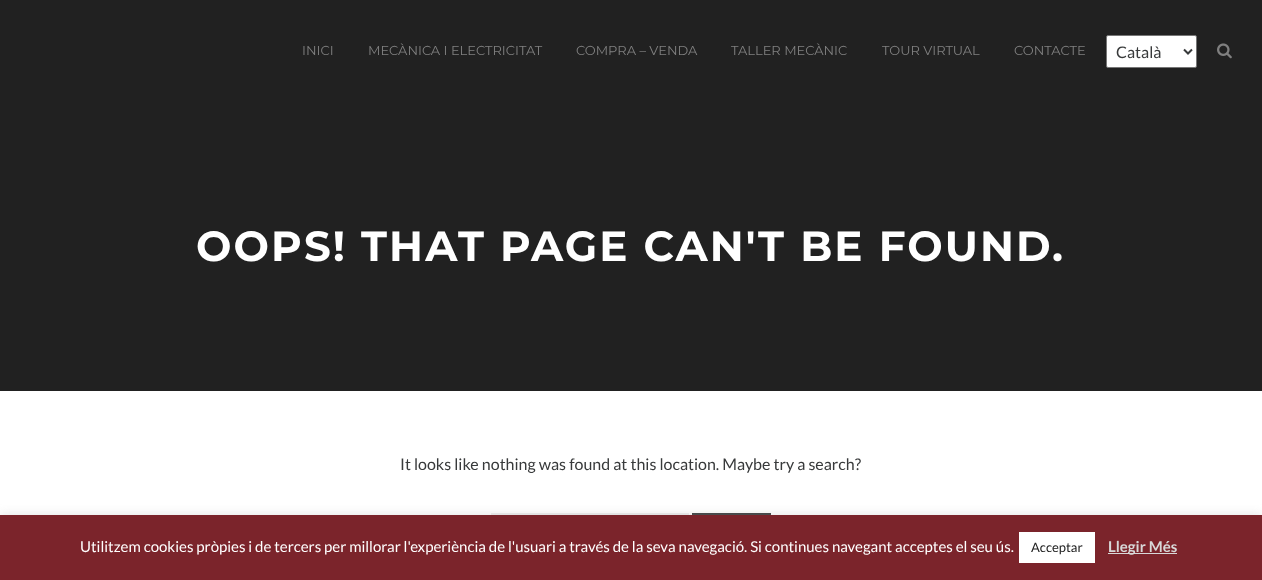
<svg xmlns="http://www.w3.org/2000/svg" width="1262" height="580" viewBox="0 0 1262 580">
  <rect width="100%" height="100%" fill="#fff"/>
  <path d="M0 0h1262v391H0z" fill="#212121"/>
  <rect x="1106.5" y="35.5" width="90" height="32" rx="1.5" fill="#fff" stroke="#767676"/>
  <path d="M1184 49.5L1188 53.5L1192 49.5" fill="none" stroke="#383a3b" stroke-width="2"/>
  <image x="1217" y="43" width="15" height="16" href="img/1.png"/>
  <path d="M491 513h198v2H491z" fill="#ededed"/>
  <path d="M693 514h77v36H693z" fill="none" stroke="#383a3b" stroke-width="2"/>
  <path d="M0 514h1262v65H0z" fill="#acabab4d" filter="blur(5px)"/>
  <path d="M0 515h1262v65H0z" fill="#7b242b"/>
  <path d="M1019 532h76v31H1019z" fill="#fff"/>
  <path d="M1108 553h69v1H1108z" fill="#d8d8d8"/>
  <g font-family="Montserrat" font-size="13" fill="#808080">
    <text x="302" y="55">INICI</text>
    <text x="368" y="55">MECÀNICA I ELECTRICITAT</text>
    <text x="576" y="55">COMPRA – VENDA</text>
    <text x="731" y="55">TALLER MECÀNIC</text>
    <text x="882" y="55">TOUR VIRTUAL</text>
    <text x="1014" y="55">CONTACTE</text>
  </g>
  <text x="1116" y="58" font-family="Lato" font-size="16" fill="#383a3b">Català</text>
  <text x="196" y="261" font-family="Montserrat" font-size="42" font-weight="bold" letter-spacing="2.1" fill="#fff">OOPS! THAT PAGE CAN'T BE FOUND.</text>
  <text x="400" y="470" font-family="Lato" font-size="16" fill="#383a3b">It looks like nothing was found at this location. Maybe try a search?</text>
  <text x="80" y="552" font-family="Lato" font-size="15" fill="#fff">Utilitzem cookies pròpies i de tercers per millorar l'experiència de l'usuari a través de la seva navegació. Si continues navegant acceptes el seu ús.</text>
  <text x="1031" y="552" font-family="Lato" font-size="13" fill="#212121">Acceptar</text>
  <text x="1108" y="552" font-family="Lato" font-size="15" font-weight="bold" fill="#d8d8d8">Llegir Més</text>
</svg>
